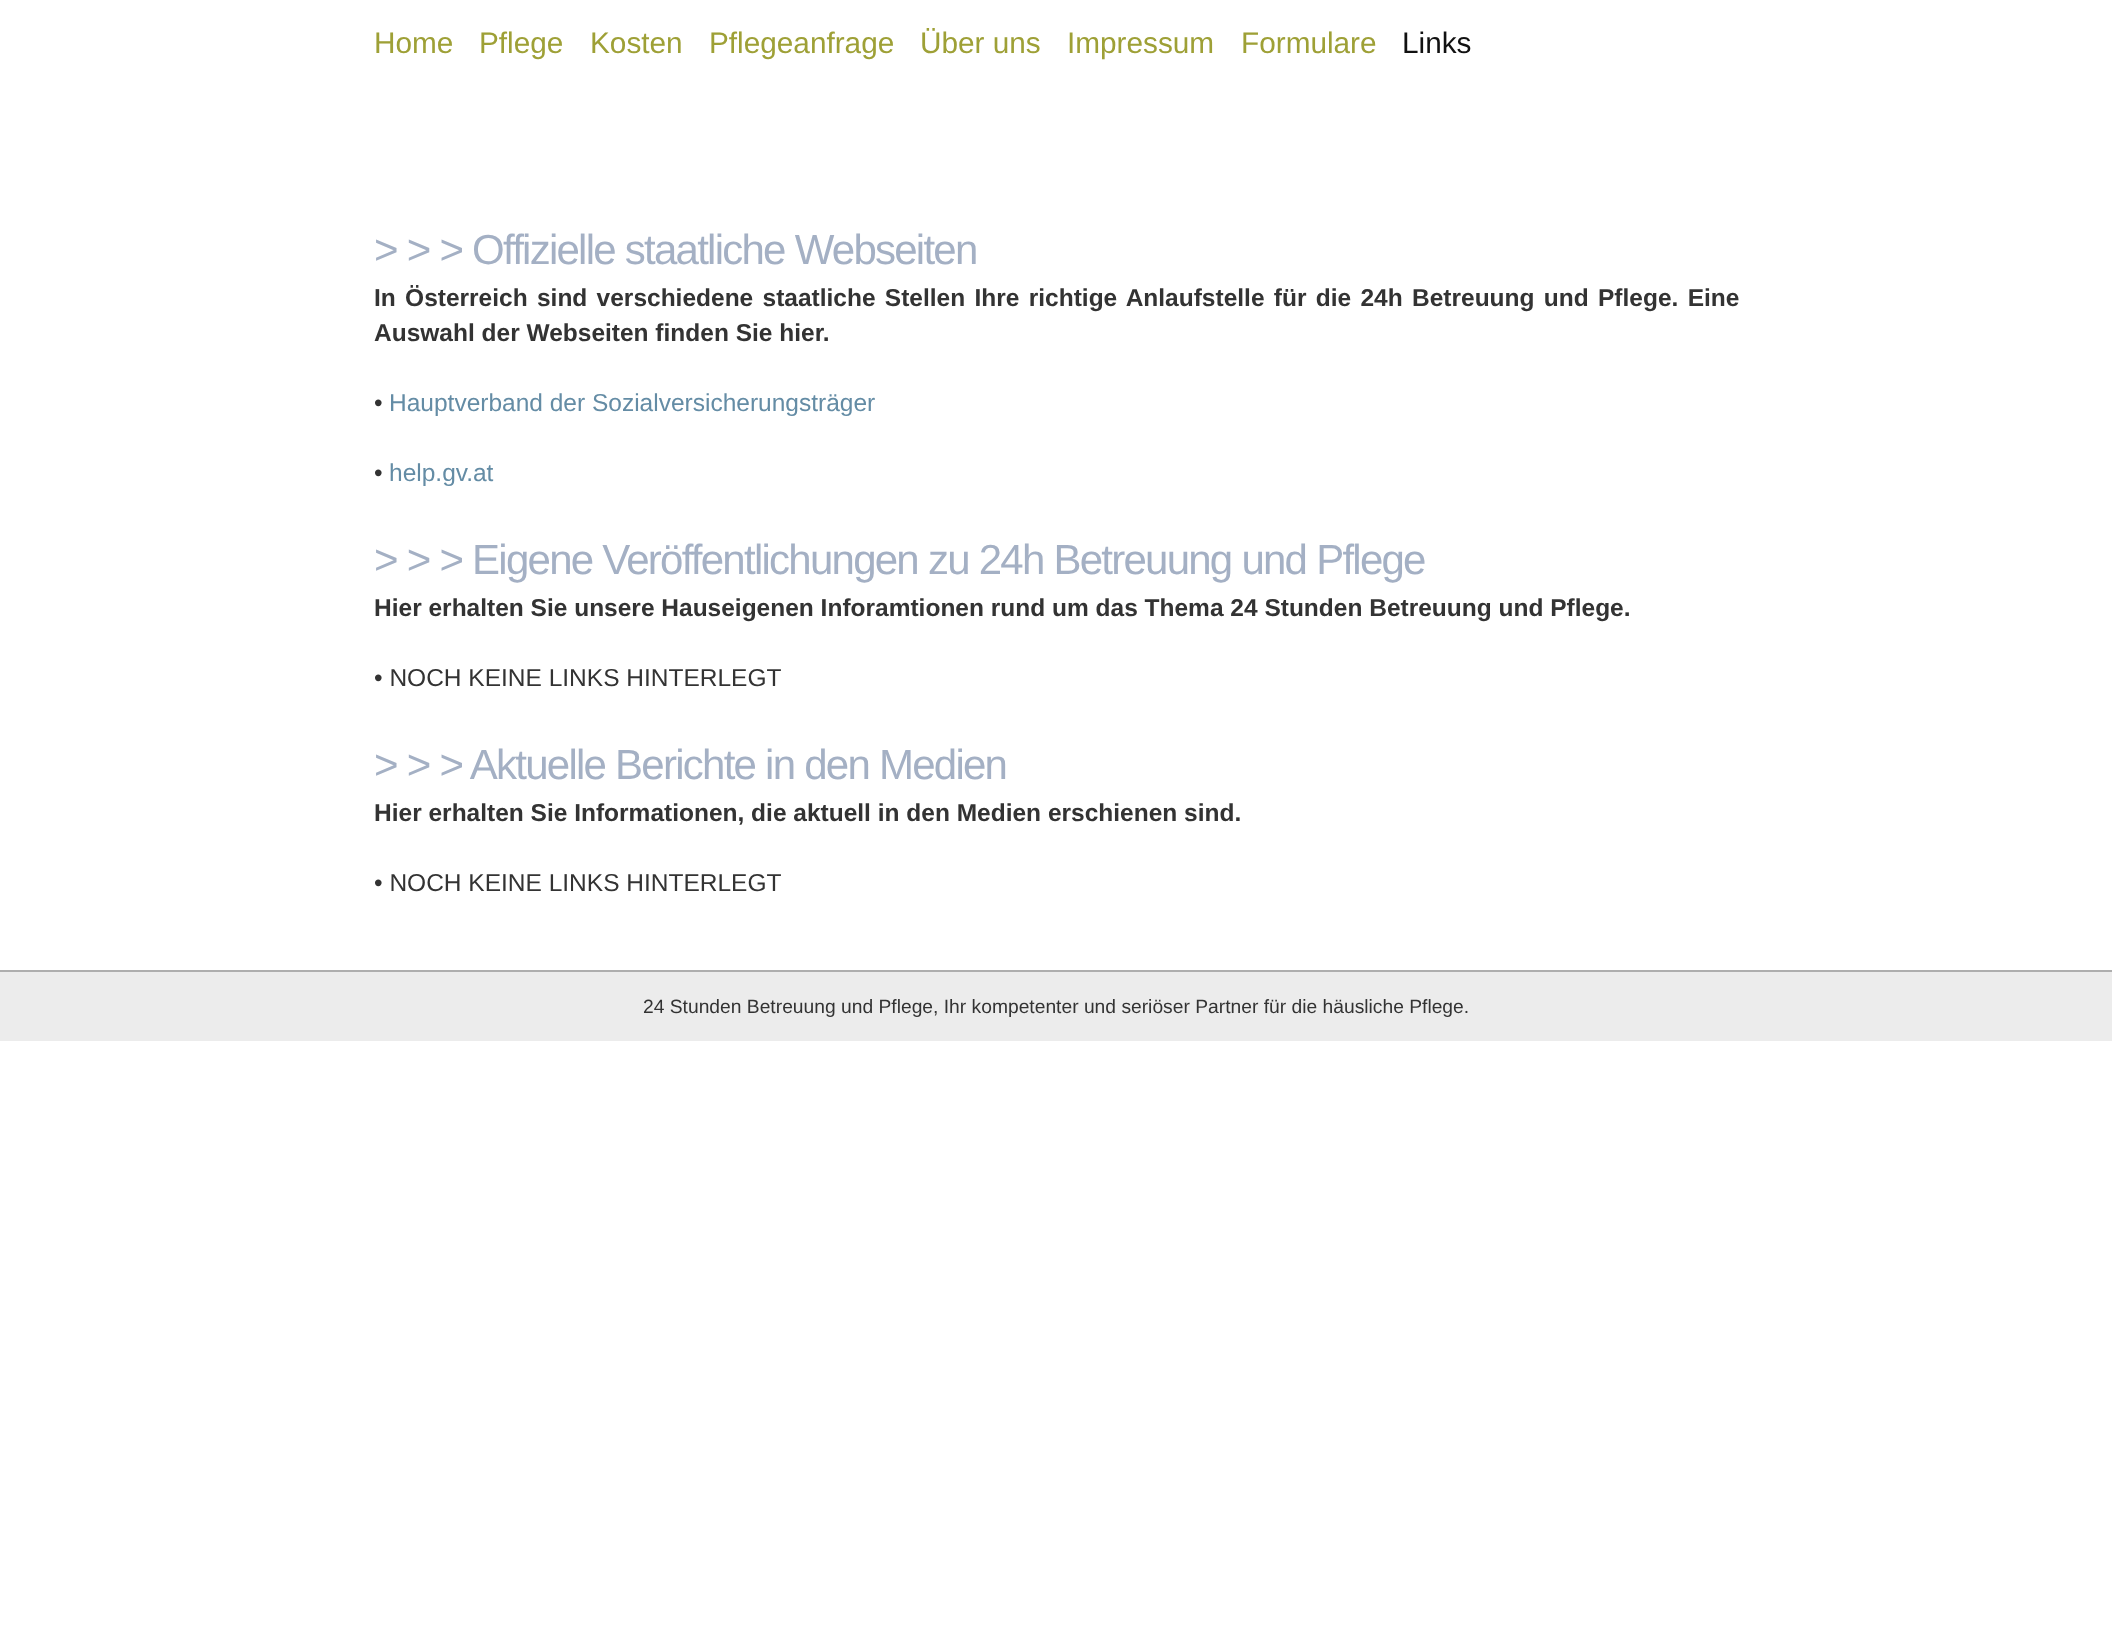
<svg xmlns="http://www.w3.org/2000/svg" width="2112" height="1649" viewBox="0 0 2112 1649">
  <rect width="100%" height="100%" fill="#fff"/>
  <path d="M0 972h2112v69H0z" fill="#ececec"/>
  <path d="M0 970h2112v2H0z" fill="#aeaeae"/>
  <g font-family="Liberation Sans" font-size="29.75" fill="#9ea036">
    <text x="374" y="53">Home</text>
    <text x="479" y="53">Pflege</text>
    <text x="590" y="53">Kosten</text>
    <text x="709" y="53">Pflegeanfrage</text>
    <text x="920" y="53">Über uns</text>
    <text x="1067" y="53">Impressum</text>
    <text x="1241" y="53">Formulare</text>
  </g>
  <text x="1402" y="53" font-family="Liberation Sans" font-size="29.75" fill="#111">Links</text>
  <text x="374" y="264" font-family="Liberation Sans" font-size="42" letter-spacing="-1.75" fill="#a4b0c4">&gt; &gt; &gt; Offizielle staatliche Webseiten</text>
  <g font-family="Liberation Sans" font-size="24.5" font-weight="bold" fill="#333">
    <text x="374" y="306" word-spacing="2.5">In Österreich sind verschiedene staatliche Stellen Ihre richtige Anlaufstelle für die 24h Betreuung und Pflege. Eine</text>
    <text x="374" y="341">Auswahl der Webseiten finden Sie hier.</text>
  </g>
  <text x="374" y="411" font-family="Liberation Sans" font-size="24.5" fill="#333">•</text>
  <text x="389" y="411" font-family="Liberation Sans" font-size="24.5" fill="#648ca5">Hauptverband der Sozialversicherungsträger</text>
  <text x="374" y="481" font-family="Liberation Sans" font-size="24.5" fill="#333">•</text>
  <text x="389" y="481" font-family="Liberation Sans" font-size="24.5" fill="#648ca5">help.gv.at</text>
  <text x="374" y="574" font-family="Liberation Sans" font-size="42" letter-spacing="-1.75" fill="#a4b0c4">&gt; &gt; &gt; Eigene Veröffentlichungen zu 24h Betreuung und Pflege</text>
  <text x="374" y="616" font-family="Liberation Sans" font-size="24.5" font-weight="bold" fill="#333">Hier erhalten Sie unsere Hauseigenen Inforamtionen rund um das Thema 24 Stunden Betreuung und Pflege.</text>
  <text x="374" y="686" font-family="Liberation Sans" font-size="24.5" fill="#333">• NOCH KEINE LINKS HINTERLEGT</text>
  <text x="374" y="779" font-family="Liberation Sans" font-size="42" letter-spacing="-1.75" fill="#a4b0c4">&gt; &gt; &gt; Aktuelle Berichte in den Medien</text>
  <text x="374" y="821" font-family="Liberation Sans" font-size="24.5" font-weight="bold" fill="#333">Hier erhalten Sie Informationen, die aktuell in den Medien erschienen sind.</text>
  <text x="374" y="891" font-family="Liberation Sans" font-size="24.5" fill="#333">• NOCH KEINE LINKS HINTERLEGT</text>
  <text x="643" y="1013" font-family="Liberation Sans" font-size="19.25" fill="#333">24 Stunden Betreuung und Pflege, Ihr kompetenter und seriöser Partner für die häusliche Pflege.</text>
</svg>
